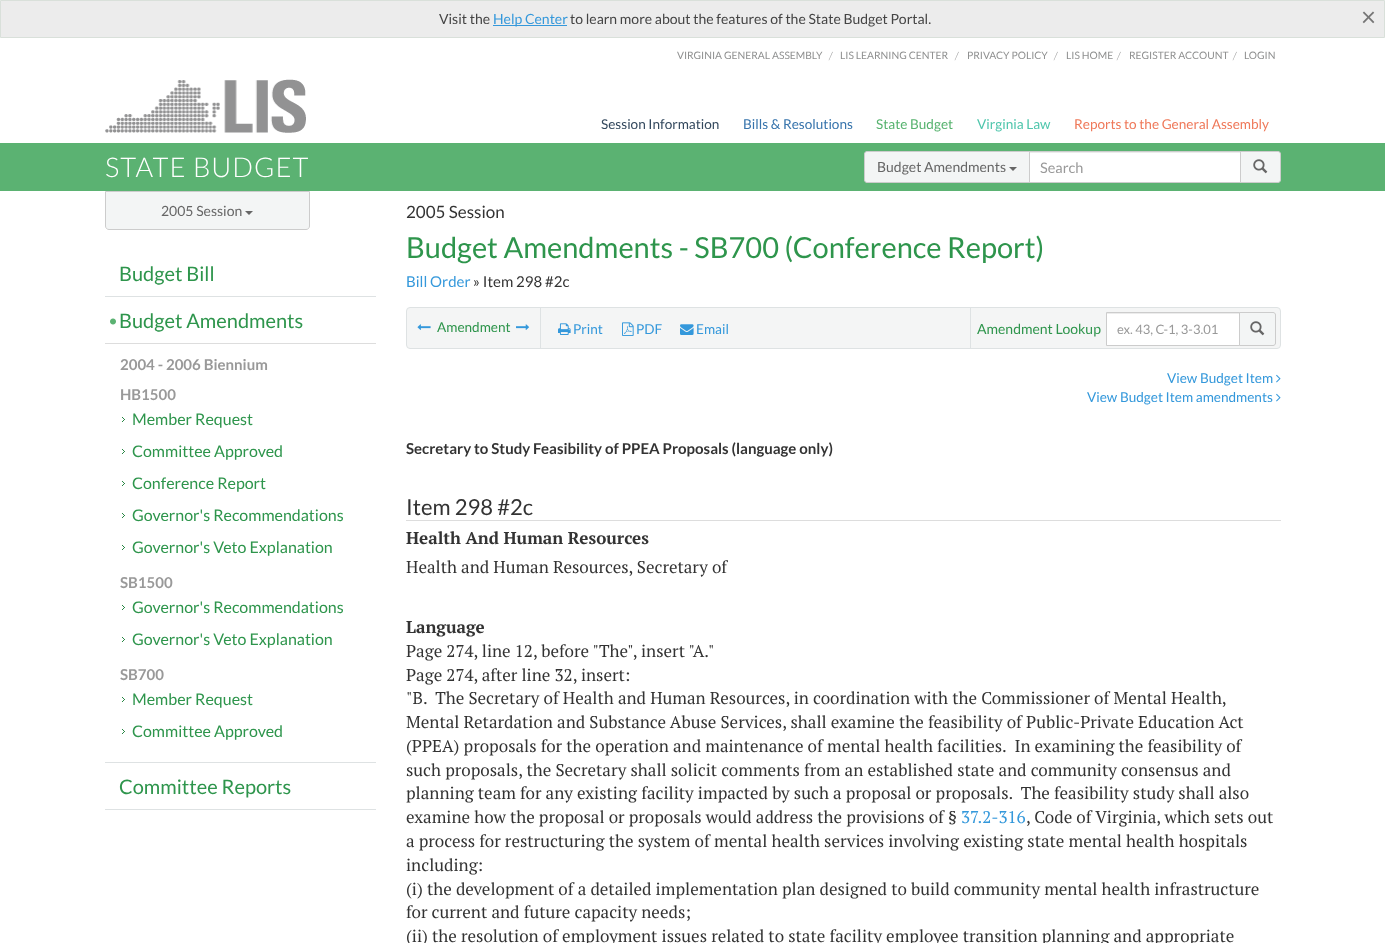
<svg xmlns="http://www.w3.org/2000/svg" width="1385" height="943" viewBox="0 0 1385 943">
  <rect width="100%" height="100%" fill="#fff"/>
  <path d="M0.5 0.5h1384v37H0.5z" fill="#ececec" stroke="#d9e0da"/>
  <path d="M493 25h74v1H493z" fill="#3498db"/>
  <image x="105" y="79" width="201" height="54" href="img/1.png"/>
  <path d="M0 143h1385v48H0z" fill="#5bb272"/>
  <path d="M1030 153h210v29H1030z" fill="#fff"/>
  <path d="M1030 152h210v1H1030z" fill="#ececec"/>
  <path d="M1029.5 151.5h211v31H1029.5z" fill="none" stroke="#ccc"/>
  <path d="M867 151.5H1029.5V182.5H867C865.5 182.5 864.5 181.5 864.5 180V154C864.5 152.5 865.5 151.5 867 151.5Z" fill="#f3f5f5" stroke="#ccc"/>
  <path d="M1009 167H1017L1013 171Z" fill="#666"/>
  <path d="M1240.5 151.5H1278C1279.5 151.5 1280.5 152.5 1280.5 154V180C1280.5 181.5 1279.5 182.5 1278 182.5H1240.5Z" fill="#f3f5f5" stroke="#ccc"/>
  <image x="1253" y="159" width="15" height="15" href="img/2.png"/>
  <path d="M105.5 191.5H309.5V226C309.5 228 308 229.5 306 229.5H109C107 229.5 105.5 228 105.5 226Z" fill="#f3f5f5" stroke="#ccc"/>
  <path d="M245 211H253L249 215Z" fill="#666"/>
  <path d="M105 296h271v1H105z" fill="#dee2e3"/>
  <path d="M105 762h271v1H105z" fill="#dee2e3"/>
  <image x="110" y="318" width="6" height="7" href="img/3.png"/>
  <path d="M105 343h271v1H105z" fill="#ddd"/>
  <image x="122" y="417" width="3" height="5" href="img/4.png"/>
  <image x="122" y="449" width="3" height="5" href="img/4.png"/>
  <image x="122" y="481" width="3" height="5" href="img/4.png"/>
  <image x="122" y="513" width="3" height="5" href="img/4.png"/>
  <image x="122" y="545" width="3" height="5" href="img/4.png"/>
  <image x="122" y="605" width="3" height="5" href="img/4.png"/>
  <image x="122" y="637" width="3" height="5" href="img/4.png"/>
  <image x="122" y="697" width="3" height="5" href="img/4.png"/>
  <image x="122" y="729" width="3" height="5" href="img/4.png"/>
  <path d="M105 809h271v1H105z" fill="#dee2e3"/>
  <rect x="406.5" y="307.5" width="874" height="41" rx="3.5" fill="#f4f5f5" stroke="#dee2e3"/>
  <path d="M540 308h1v40H540z" fill="#dee2e3"/>
  <image x="417" y="324" width="14" height="6" href="img/5.png"/>
  <image x="516" y="324" width="14" height="6" href="img/6.png"/>
  <image x="558" y="323" width="13" height="12" href="img/7.png"/>
  <image x="622" y="322" width="12" height="14" href="img/8.png"/>
  <image x="680" y="324" width="14" height="11" href="img/9.png"/>
  <path d="M970 308h1v40H970z" fill="#dee2e3"/>
  <path d="M1107 314h132v31H1107z" fill="#fff"/>
  <path d="M1107 313h132v1H1107z" fill="#ececec"/>
  <path d="M1106.5 312.5h133v33H1106.5z" fill="none" stroke="#ccc"/>
  <path d="M1239.5 312.5H1273C1274.5 312.5 1275.5 313.5 1275.5 315V343C1275.5 344.5 1274.5 345.5 1273 345.5H1239.5Z" fill="#f3f5f5" stroke="#ccc"/>
  <image x="1250" y="321" width="15" height="15" href="img/2.png"/>
  <image x="1276" y="374" width="5" height="9" href="img/10.png"/>
  <image x="1276" y="393" width="5" height="9" href="img/10.png"/>
  <path d="M406 520h875v1H406z" fill="#ddd"/>
  <text x="439" y="24" font-family="Lato" font-size="14" fill="#444">Visit the</text>
  <text x="493" y="24" font-family="Lato" font-size="14" fill="#3498db">Help Center</text>
  <text x="570" y="24" font-family="Lato" font-size="14" fill="#444">to learn more about the features of the State Budget Portal.</text>
  <text x="1361" y="26" font-family="Lato" font-size="26" fill="#767676">×</text>
  <text x="677" y="59" font-family="Lato" font-size="10.25" fill="#8f9090">VIRGINIA GENERAL ASSEMBLY</text>
  <text x="829" y="59" font-family="PT Serif" font-size="10.25" fill="#8f9090">/</text>
  <text x="840" y="59" font-family="Lato" font-size="10.25" fill="#8f9090">LIS LEARNING CENTER</text>
  <text x="955" y="59" font-family="PT Serif" font-size="10.25" fill="#8f9090">/</text>
  <text x="967" y="59" font-family="Lato" font-size="10.25" fill="#8f9090">PRIVACY POLICY</text>
  <text x="1054" y="59" font-family="PT Serif" font-size="10.25" fill="#8f9090">/</text>
  <text x="1066" y="59" font-family="Lato" font-size="10.25" fill="#8f9090">LIS HOME</text>
  <text x="1117" y="59" font-family="PT Serif" font-size="10.25" fill="#8f9090">/</text>
  <text x="1129" y="59" font-family="Lato" font-size="10.25" fill="#8f9090">REGISTER ACCOUNT</text>
  <text x="1233" y="59" font-family="PT Serif" font-size="10.25" fill="#8f9090">/</text>
  <text x="1244" y="59" font-family="Lato" font-size="10.25" fill="#8f9090">LOGIN</text>
  <text x="601" y="129" font-family="Lato" font-size="13.6" fill="#34495e">Session Information</text>
  <text x="743" y="129" font-family="Lato" font-size="13.6" fill="#3774ac">Bills &amp; Resolutions</text>
  <text x="876" y="129" font-family="Lato" font-size="13.6" fill="#57b36f">State Budget</text>
  <text x="977" y="129" font-family="Lato" font-size="13.6" fill="#4fc6ac">Virginia Law</text>
  <text x="1074" y="129" font-family="Lato" font-size="13.6" fill="#ef795a">Reports to the General Assembly</text>
  <text x="105" y="177" font-family="Lato" font-size="27.25" font-weight="300" letter-spacing="1" fill="#fff">STATE BUDGET</text>
  <text x="877" y="172" font-family="Lato" font-size="14" fill="#666">Budget Amendments</text>
  <text x="1040" y="173" font-family="Lato" font-size="14.5" fill="#999">Search</text>
  <text x="161" y="216" font-family="Lato" font-size="14" fill="#666">2005 Session</text>
  <g font-family="Lato" font-size="20" fill="#2e954c">
    <text x="119" y="281">Budget Bill</text>
    <text x="119" y="328">Budget Amendments</text>
  </g>
  <g font-family="Lato" font-size="15" font-weight="bold" fill="#999">
    <text x="120" y="370">2004 - 2006 Biennium</text>
    <text x="120" y="400">HB1500</text>
  </g>
  <g font-family="Lato" font-size="16" fill="#2e954c">
    <text x="132" y="425">Member Request</text>
    <text x="132" y="457">Committee Approved</text>
    <text x="132" y="489">Conference Report</text>
    <text x="132" y="521">Governor's Recommendations</text>
    <text x="132" y="553">Governor's Veto Explanation</text>
  </g>
  <text x="120" y="588" font-family="Lato" font-size="15" font-weight="bold" fill="#999">SB1500</text>
  <g font-family="Lato" font-size="16" fill="#2e954c">
    <text x="132" y="613">Governor's Recommendations</text>
    <text x="132" y="645">Governor's Veto Explanation</text>
  </g>
  <text x="120" y="680" font-family="Lato" font-size="15" font-weight="bold" fill="#999">SB700</text>
  <g font-family="Lato" font-size="16" fill="#2e954c">
    <text x="132" y="705">Member Request</text>
    <text x="132" y="737">Committee Approved</text>
  </g>
  <text x="119" y="794" font-family="Lato" font-size="20" fill="#2e954c">Committee Reports</text>
  <text x="406" y="218" font-family="Lato" font-size="17" fill="#333">2005 Session</text>
  <text x="406" y="258" font-family="Lato" font-size="29" fill="#2e954c">Budget Amendments - SB700 (Conference Report)</text>
  <text x="406" y="287" font-family="Lato" font-size="15" fill="#3498db">Bill Order</text>
  <text x="473" y="287" font-family="Lato" font-size="15" fill="#333">» Item 298 #2c</text>
  <text x="437" y="332" font-family="Lato" font-size="13.6" fill="#2e954c">Amendment</text>
  <g font-family="Lato" font-size="13.6" fill="#3498db">
    <text x="573" y="334">Print</text>
    <text x="636" y="334">PDF</text>
    <text x="696" y="334">Email</text>
  </g>
  <text x="977" y="334" font-family="Lato" font-size="14" fill="#2e954c">Amendment Lookup</text>
  <text x="1117" y="334" font-family="Lato" font-size="13" fill="#999">ex. 43, C-1, 3-3.01</text>
  <g font-family="Lato" font-size="13.6" fill="#3498db">
    <text x="1167" y="383">View Budget Item</text>
    <text x="1087" y="402">View Budget Item amendments</text>
  </g>
  <text x="406" y="454" font-family="Lato" font-size="15" font-weight="bold" fill="#333">Secretary to Study Feasibility of PPEA Proposals (language only)</text>
  <text x="406" y="515" font-family="Lato" font-size="22" fill="#333">Item 298 #2c</text>
  <text x="406" y="544" font-family="PT Serif" font-size="17" font-weight="bold" fill="#333">Health And Human Resources</text>
  <text x="406" y="573" font-family="PT Serif" font-size="17" fill="#333">Health and Human Resources, Secretary of</text>
  <text x="406" y="633" font-family="PT Serif" font-size="17" font-weight="bold" fill="#333">Language</text>
  <g font-family="PT Serif" font-size="17" fill="#333">
    <text x="406" y="657">Page 274, line 12, before "The", insert "A."</text>
    <text x="406" y="681">Page 274, after line 32, insert:</text>
    <text x="406" y="704" xml:space="preserve">"B.  The Secretary of Health and Human Resources, in coordination with the Commissioner of Mental Health,</text>
    <text x="406" y="728">Mental Retardation and Substance Abuse Services, shall examine the feasibility of Public-Private Education Act</text>
    <text x="406" y="752" xml:space="preserve">(PPEA) proposals for the operation and maintenance of mental health facilities.  In examining the feasibility of</text>
    <text x="406" y="776">such proposals, the Secretary shall solicit comments from an established state and community consensus and</text>
    <text x="406" y="799" xml:space="preserve">planning team for any existing facility impacted by such a proposal or proposals.  The feasibility study shall also</text>
    <text x="406" y="823">examine how the proposal or proposals would address the provisions of §</text>
  </g>
  <text x="961" y="823" font-family="PT Serif" font-size="17" fill="#3498db">37.2-316</text>
  <g font-family="PT Serif" font-size="17" fill="#333">
    <text x="1026" y="823">, Code of Virginia, which sets out</text>
    <text x="406" y="847">a process for restructuring the system of mental health services involving existing state mental health hospitals</text>
    <text x="406" y="871">including:</text>
    <text x="406" y="895">(i) the development of a detailed implementation plan designed to build community mental health infrastructure</text>
    <text x="406" y="918">for current and future capacity needs;</text>
    <text x="406" y="942">(ii) the resolution of employment issues related to state facility employee transition planning and appropriate</text>
  </g>
</svg>
